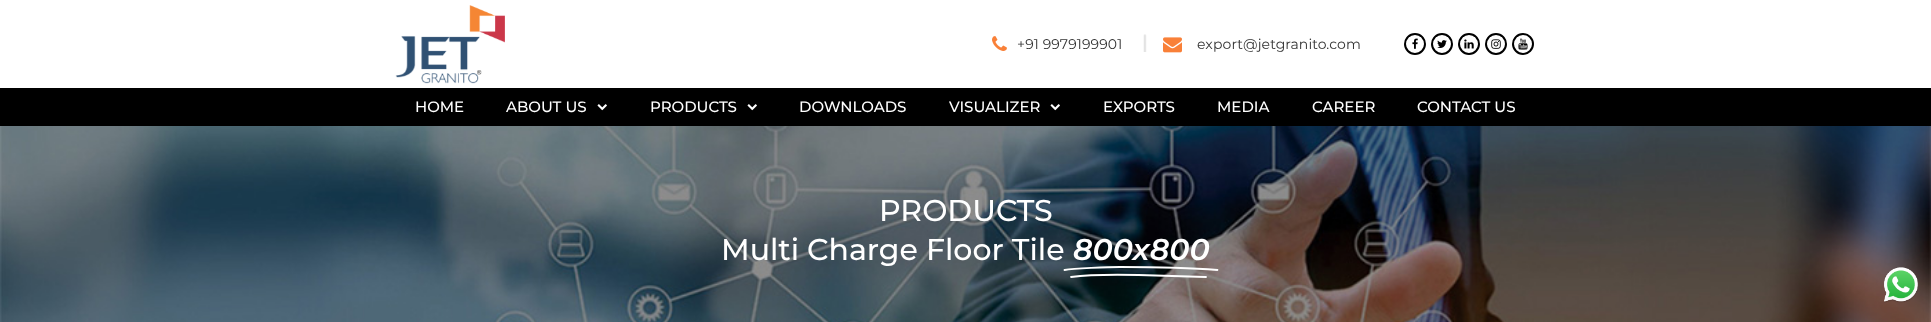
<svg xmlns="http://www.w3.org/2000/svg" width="1931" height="322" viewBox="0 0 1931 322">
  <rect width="100%" height="100%" fill="#fff"/>
  <image x="395" y="5" width="110" height="79" href="img/1.png"/>
  <image x="992" y="36" width="15" height="15" href="img/2.png"/>
  <image x="1143" y="34" width="4" height="18" href="img/3.png"/>
  <image x="1163" y="37" width="19" height="16" href="img/4.png"/>
  <circle cx="1415" cy="44" r="10" fill="none" stroke="#000" stroke-width="2"/>
  <image x="1412" y="38" width="6" height="11" href="img/5.png"/>
  <circle cx="1442" cy="44" r="10" fill="none" stroke="#000" stroke-width="2"/>
  <image x="1437" y="40" width="10" height="8" href="img/6.png"/>
  <circle cx="1469" cy="44" r="10" fill="none" stroke="#000" stroke-width="2"/>
  <image x="1464" y="39" width="10" height="10" href="img/7.png"/>
  <circle cx="1496" cy="44" r="10" fill="none" stroke="#000" stroke-width="2"/>
  <image x="1491" y="39" width="10" height="10" href="img/8.png"/>
  <circle cx="1523" cy="44" r="10" fill="none" stroke="#000" stroke-width="2"/>
  <image x="1518" y="38" width="10" height="12" href="img/9.png"/>
  <path d="M0 88h1931v38H0z" fill="#000"/>
  <image x="597" y="104" width="10" height="7" href="img/10.png"/>
  <image x="747" y="104" width="10" height="7" href="img/10.png"/>
  <image x="1050" y="104" width="10" height="7" href="img/10.png"/>
  <image x="0" y="126" width="1931" height="196" href="img/11.png"/>
  <path d="M1064.5 270C1074 268.5 1107.5 267 1120 267C1156.5 267 1199 268.5 1217.5 270" fill="none" stroke="#fff" stroke-width="1.8" stroke-linecap="round" stroke-linejoin="round"/>
  <path d="M1071 277C1093.5 274 1116 274.5 1138.5 275L1206 277" fill="none" stroke="#fff" stroke-width="1.8" stroke-linecap="round" stroke-linejoin="round"/>
  <image x="1884" y="267" width="34" height="36" href="img/12.png"/>
  <g font-family="Montserrat" font-size="14" letter-spacing="0.1" fill="#333">
    <text x="1017" y="49">+91 9979199901</text>
    <text x="1197" y="49">export@jetgranito.com</text>
  </g>
  <g font-family="Montserrat" font-size="15" font-weight="500" fill="#fff">
    <text x="415" y="112">HOME</text>
    <text x="506" y="112">ABOUT US</text>
    <text x="650" y="112">PRODUCTS</text>
    <text x="799" y="112">DOWNLOADS</text>
    <text x="949" y="112">VISUALIZER</text>
    <text x="1103" y="112">EXPORTS</text>
    <text x="1217" y="112">MEDIA</text>
    <text x="1312" y="112">CAREER</text>
    <text x="1417" y="112">CONTACT US</text>
  </g>
  <g font-family="Montserrat" font-size="30" font-weight="500" fill="#fff">
    <text x="879" y="221">PRODUCTS</text>
    <text x="721" y="260">Multi Charge Floor Tile</text>
  </g>
  <text x="1073" y="260" font-family="Montserrat" font-size="30" font-weight="600" font-style="italic" fill="#fff">800x800</text>
</svg>
